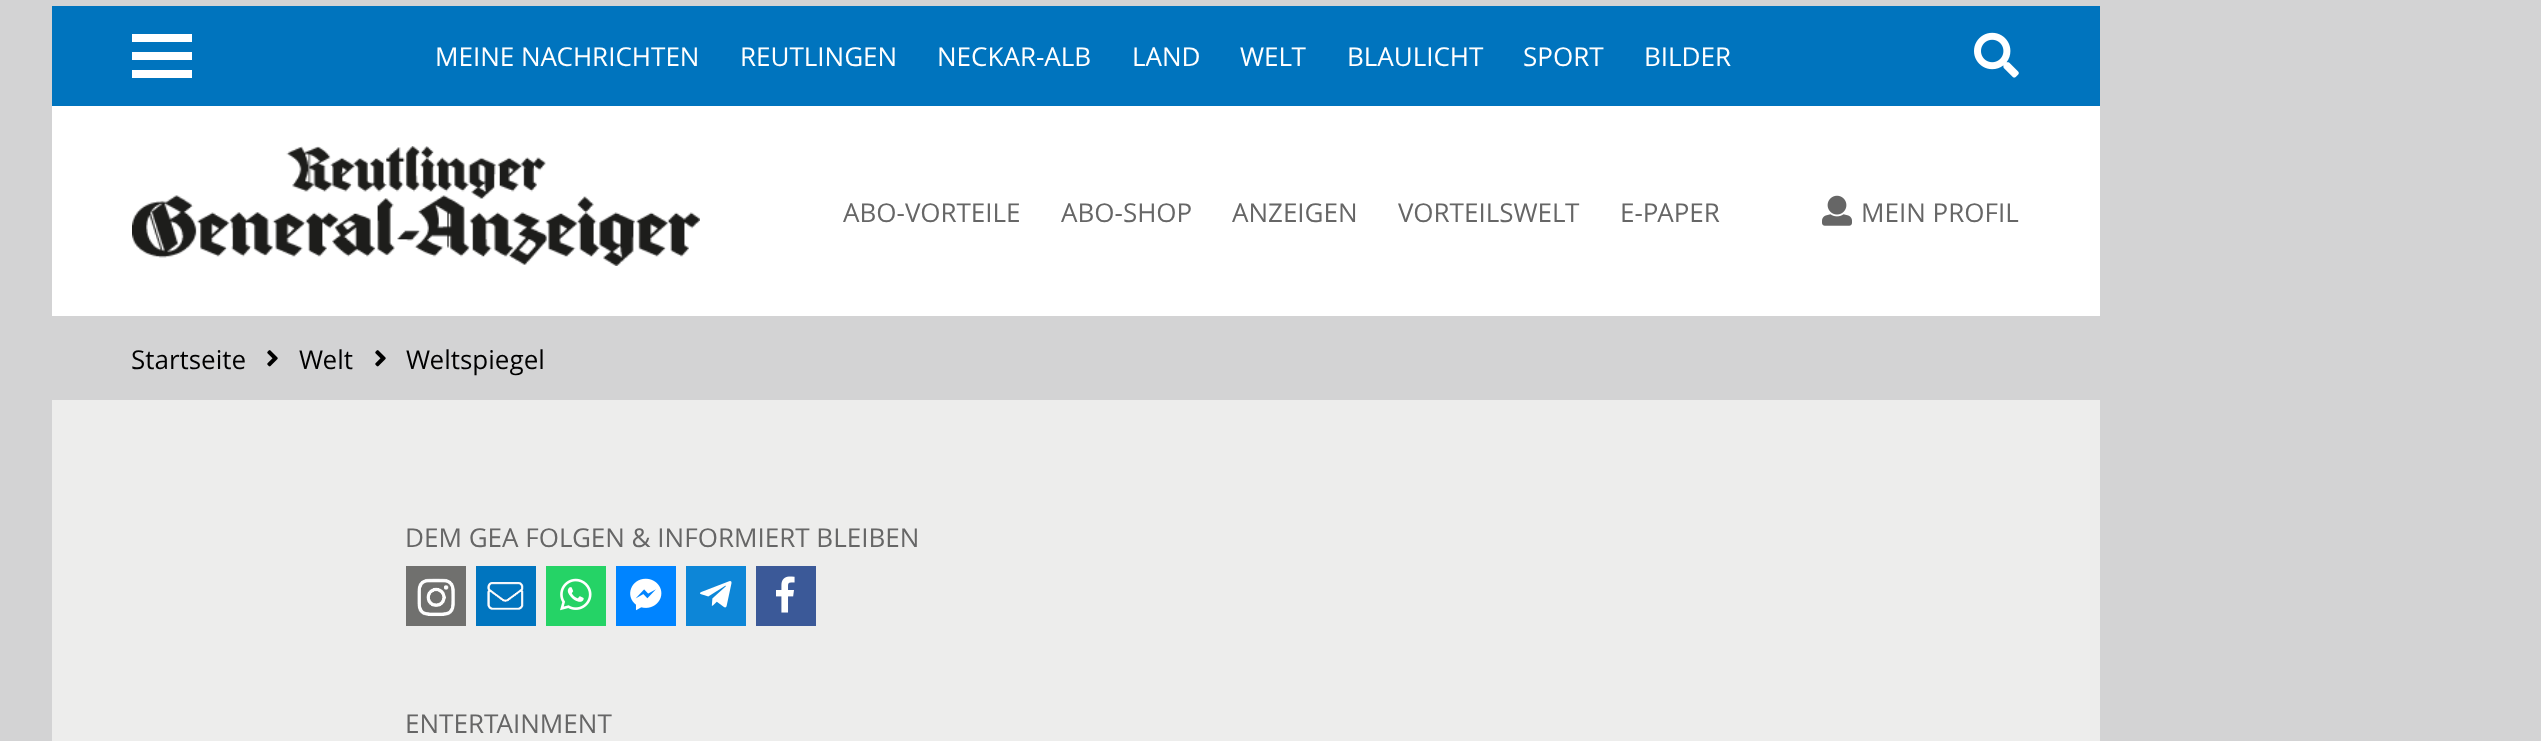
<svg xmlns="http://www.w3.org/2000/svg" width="2541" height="741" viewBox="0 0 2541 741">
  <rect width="100%" height="100%" fill="#d3d3d4"/>
  <path d="M52 400h2048v341H52z" fill="#ededec"/>
  <path d="M52 106h2048v210H52z" fill="#fff"/>
  <path d="M52 6h2048v100H52z" fill="#0074be"/>
  <path d="M132 52h60v8H132z" fill="#fff"/>
  <path d="M132 34h60v8H132z" fill="#fff"/>
  <path d="M132 70h60v8H132z" fill="#fff"/>
  <image x="1974" y="32" width="45" height="46" href="img/1.png"/>
  <image x="132" y="146" width="568" height="120" href="img/2.png"/>
  <image x="1822" y="195" width="30" height="31" href="img/3.png"/>
  <image x="267" y="350" width="11" height="17" href="img/4.png"/>
  <image x="375" y="350" width="11" height="17" href="img/4.png"/>
  <image x="406" y="566" width="60" height="60" href="img/5.png"/>
  <image x="476" y="566" width="60" height="60" href="img/6.png"/>
  <path d="M546 566h60v60H546z" fill="#25d366"/>
  <image x="560" y="578" width="32" height="33" href="img/7.png"/>
  <path d="M616 566h60v60H616z" fill="#0084ff"/>
  <image x="630" y="578" width="32" height="33" href="img/8.png"/>
  <path d="M686 566h60v60H686z" fill="#0d86d7"/>
  <image x="700" y="581" width="32" height="27" href="img/9.png"/>
  <path d="M756 566h60v60H756z" fill="#3b5998"/>
  <image x="776" y="576" width="19" height="37" href="img/10.png"/>
  <g font-family="Open Sans" font-size="26" fill="#fff">
    <text x="435" y="66">MEINE NACHRICHTEN</text>
    <text x="740" y="66">REUTLINGEN</text>
    <text x="937" y="66">NECKAR-ALB</text>
    <text x="1132" y="66">LAND</text>
    <text x="1240" y="66">WELT</text>
    <text x="1347" y="66">BLAULICHT</text>
    <text x="1523" y="66">SPORT</text>
    <text x="1644" y="66">BILDER</text>
  </g>
  <g font-family="Open Sans" font-size="26" fill="#666">
    <text x="843" y="222">ABO-VORTEILE</text>
    <text x="1061" y="222">ABO-SHOP</text>
    <text x="1232" y="222">ANZEIGEN</text>
    <text x="1398" y="222">VORTEILSWELT</text>
    <text x="1620" y="222">E-PAPER</text>
    <text x="1861" y="222">MEIN PROFIL</text>
  </g>
  <g font-family="Open Sans" font-size="26" fill="#000">
    <text x="131" y="369">Startseite</text>
    <text x="299" y="369">Welt</text>
    <text x="406" y="369">Weltspiegel</text>
  </g>
  <g font-family="Open Sans" font-size="26" fill="#666">
    <text x="405" y="547">DEM GEA FOLGEN &amp; INFORMIERT BLEIBEN</text>
    <text x="405" y="733">ENTERTAINMENT</text>
  </g>
</svg>
